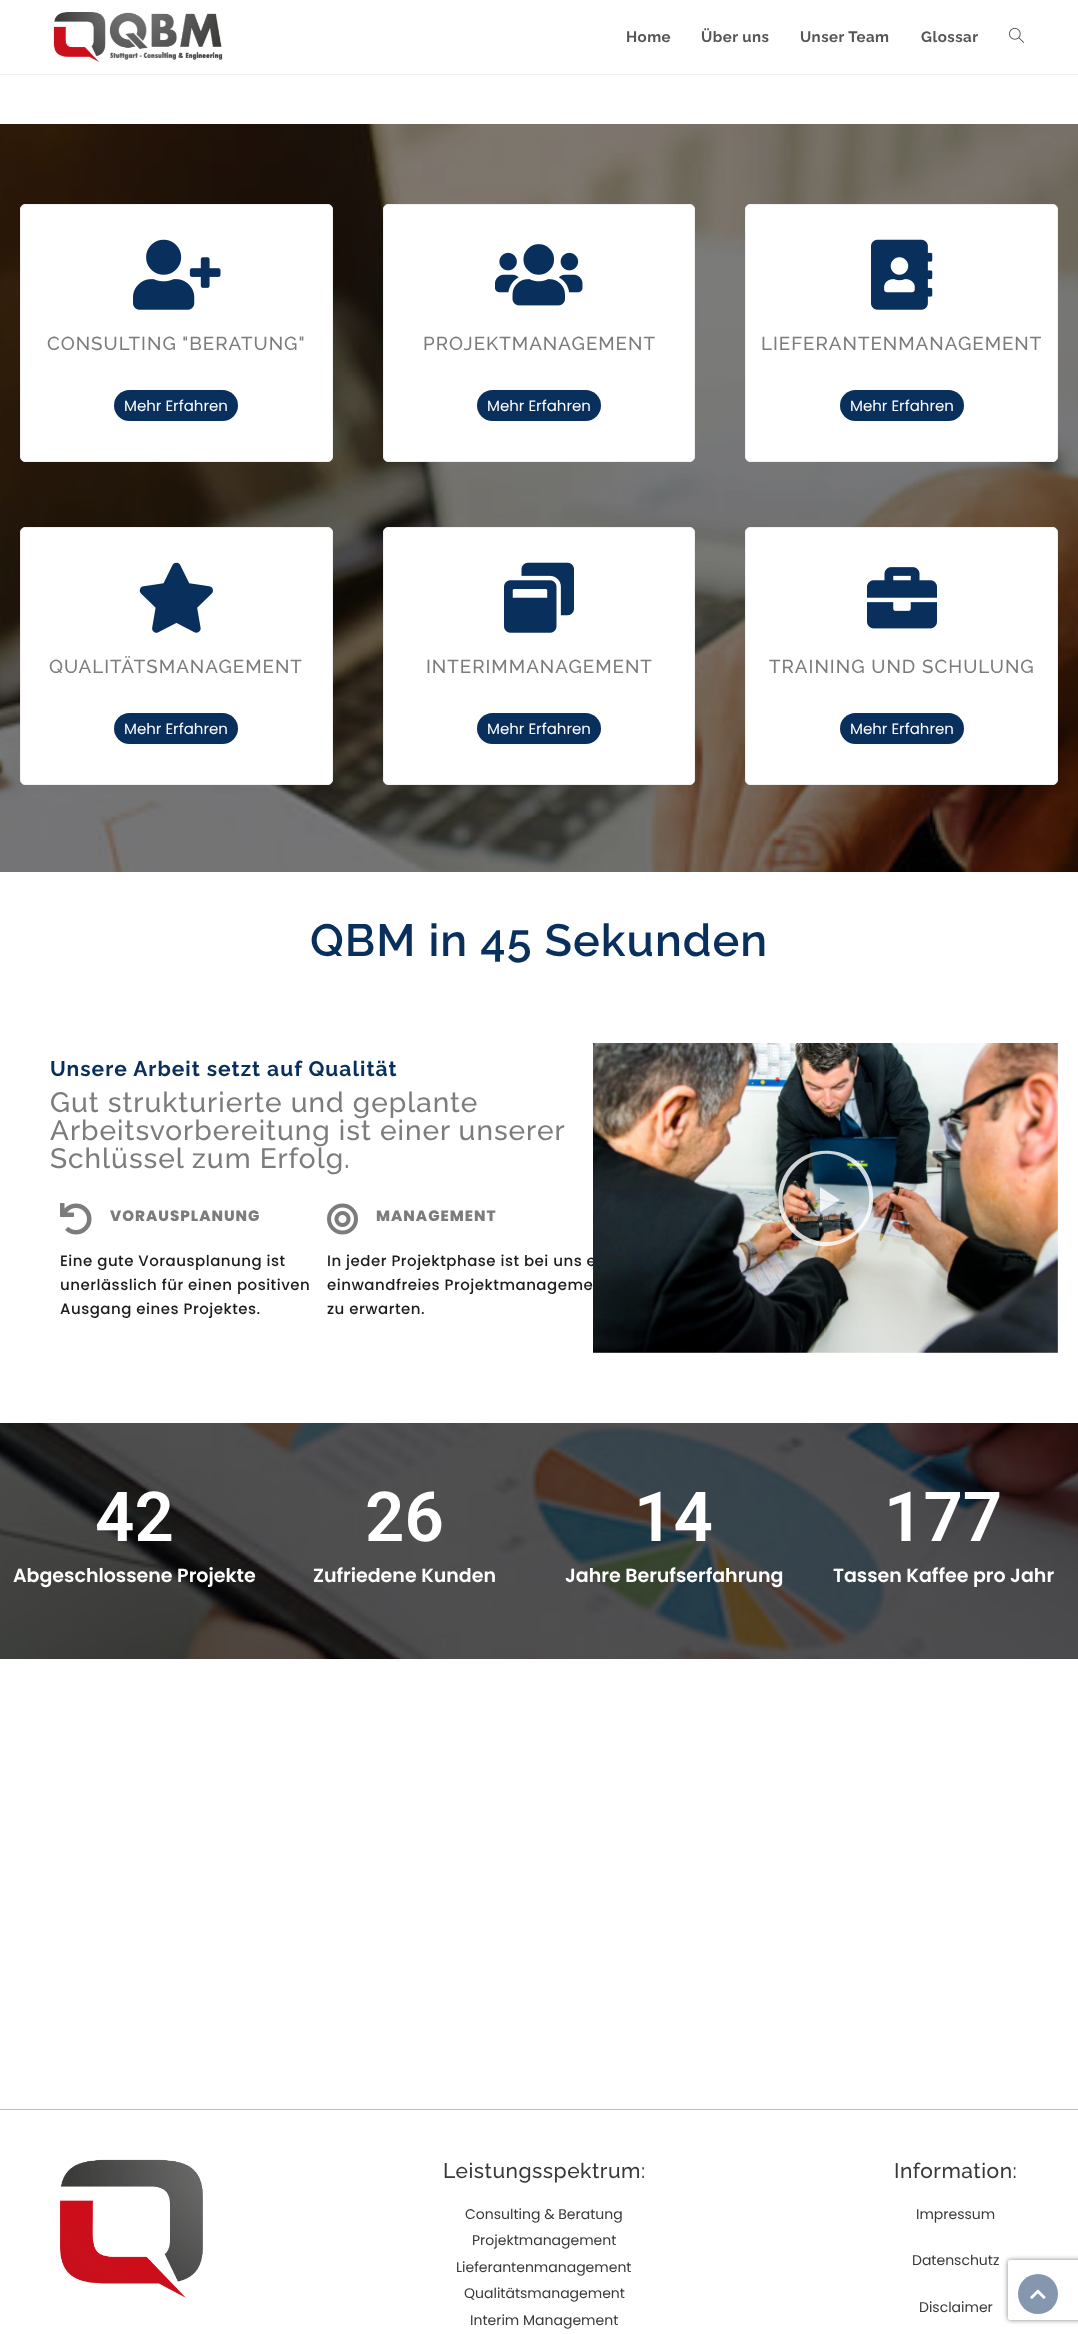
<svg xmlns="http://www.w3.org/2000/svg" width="1078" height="2334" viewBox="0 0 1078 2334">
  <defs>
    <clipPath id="clip1"><path d="M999 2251H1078V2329H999ZM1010 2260H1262C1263 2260 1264 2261 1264 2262V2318C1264 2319 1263 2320 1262 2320H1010C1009 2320 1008 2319 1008 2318V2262C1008 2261 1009 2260 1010 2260Z" clip-rule="evenodd"/></clipPath>
  </defs>
  <rect width="100%" height="100%" fill="#fff"/>
  <path d="M0 74h1078v1H0z" fill="#f1f1f1"/>
  <image x="53" y="12" width="170" height="50" href="img/1.png"/>
  <image x="1009" y="27" width="15" height="16" href="img/2.png"/>
  <image x="0" y="124" width="1078" height="748" href="img/3.png"/>
  <rect x="20.5" y="204.5" width="312" height="257" rx="4.5" fill="#fff" stroke="#f1f1f1"/>
  <image x="133" y="239" width="88" height="71" href="img/4.png"/>
  <rect x="114" y="390" width="124" height="31" rx="15.5" fill="#092f5d"/>
  <rect x="383.5" y="204.5" width="311" height="257" rx="4.5" fill="#fff" stroke="#f1f1f1"/>
  <image x="495" y="244" width="88" height="62" href="img/5.png"/>
  <rect x="477" y="390" width="124" height="31" rx="15.5" fill="#092f5d"/>
  <rect x="745.5" y="204.5" width="312" height="257" rx="4.5" fill="#fff" stroke="#f1f1f1"/>
  <image x="871" y="239" width="62" height="71" href="img/6.png"/>
  <rect x="840" y="390" width="124" height="31" rx="15.5" fill="#092f5d"/>
  <rect x="20.5" y="527.5" width="312" height="257" rx="4.5" fill="#fff" stroke="#f1f1f1"/>
  <image x="139" y="562" width="74" height="71" href="img/7.png"/>
  <rect x="114" y="713" width="124" height="31" rx="15.5" fill="#092f5d"/>
  <rect x="383.5" y="527.5" width="311" height="257" rx="4.5" fill="#fff" stroke="#f1f1f1"/>
  <image x="504" y="562" width="70" height="71" href="img/8.png"/>
  <rect x="477" y="713" width="124" height="31" rx="15.5" fill="#092f5d"/>
  <rect x="745.5" y="527.5" width="312" height="257" rx="4.5" fill="#fff" stroke="#f1f1f1"/>
  <image x="867" y="567" width="70" height="62" href="img/9.png"/>
  <rect x="840" y="713" width="124" height="31" rx="15.5" fill="#092f5d"/>
  <image x="60" y="1203" width="32" height="32" href="img/10.png"/>
  <image x="327" y="1203" width="31" height="32" href="img/11.png"/>
  <image x="0" y="1423" width="1078" height="236" href="img/13.png"/>
  <path d="M0 2109h1078v1H0z" fill="#bfbfbf"/>
  <image x="60" y="2159" width="143" height="139" href="img/14.png"/>
  <g clip-path="url(#clip1)">
    <rect x="1008" y="2260" width="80" height="60" rx="2" fill="#808080" filter="blur(2.5px)"/>
  </g>
  <circle cx="1038" cy="2294" r="20" fill="#8497ae"/>
  <image x="1030" y="2289" width="16" height="10" href="img/15.png"/>
  <g font-family="Raleway" font-size="15" font-weight="bold" letter-spacing="0.5" fill="#555">
    <text x="626" y="42">Home</text>
    <text x="701" y="42">Über uns</text>
    <text x="800" y="42">Unser Team</text>
    <text x="921" y="42">Glossar</text>
  </g>
  <text x="47" y="350" font-family="Raleway" font-size="18.75" font-weight="500" letter-spacing="1" fill="#7c7c7c">CONSULTING "BERATUNG"</text>
  <text x="124" y="411" font-family="Poppins" font-size="15" fill="#fff">Mehr Erfahren</text>
  <text x="423" y="350" font-family="Raleway" font-size="18.75" font-weight="500" letter-spacing="1" fill="#7c7c7c">PROJEKTMANAGEMENT</text>
  <text x="487" y="411" font-family="Poppins" font-size="15" fill="#fff">Mehr Erfahren</text>
  <text x="761" y="350" font-family="Raleway" font-size="18.75" font-weight="500" letter-spacing="1" fill="#7c7c7c">LIEFERANTENMANAGEMENT</text>
  <text x="850" y="411" font-family="Poppins" font-size="15" fill="#fff">Mehr Erfahren</text>
  <text x="49" y="673" font-family="Raleway" font-size="18.75" font-weight="500" letter-spacing="1" fill="#7c7c7c">QUALITÄTSMANAGEMENT</text>
  <text x="124" y="734" font-family="Poppins" font-size="15" fill="#fff">Mehr Erfahren</text>
  <text x="426" y="673" font-family="Raleway" font-size="18.75" font-weight="500" letter-spacing="1" fill="#7c7c7c">INTERIMMANAGEMENT</text>
  <text x="487" y="734" font-family="Poppins" font-size="15" fill="#fff">Mehr Erfahren</text>
  <text x="769" y="673" font-family="Raleway" font-size="18.75" font-weight="500" letter-spacing="1" fill="#7c7c7c">TRAINING UND SCHULUNG</text>
  <text x="850" y="734" font-family="Poppins" font-size="15" fill="#fff">Mehr Erfahren</text>
  <text x="310" y="956" font-family="Raleway" font-size="45" font-weight="600" letter-spacing="1" fill="#092f5d">QBM in 45 Sekunden</text>
  <text x="50" y="1076" font-family="Raleway" font-size="21" font-weight="bold" letter-spacing="1" fill="#092f5d">Unsere Arbeit setzt auf Qualität</text>
  <g font-family="Raleway" font-size="28" font-weight="500" letter-spacing="1" fill="#7c7c7c">
    <text x="50" y="1112">Gut strukturierte und geplante</text>
    <text x="50" y="1140">Arbeitsvorbereitung ist einer unserer</text>
    <text x="50" y="1168">Schlüssel zum Erfolg.</text>
  </g>
  <text x="110" y="1221" font-family="Poppins" font-size="15" font-weight="800" letter-spacing="1" fill="#7c7c7c">VORAUSPLANUNG</text>
  <g font-family="Poppins" font-size="15" font-weight="500" letter-spacing="0.5" fill="#1c1c1c">
    <text x="60" y="1266">Eine gute Vorausplanung ist</text>
    <text x="60" y="1290">unerlässlich für einen positiven</text>
    <text x="60" y="1314">Ausgang eines Projektes.</text>
  </g>
  <text x="376" y="1221" font-family="Poppins" font-size="15" font-weight="800" letter-spacing="1" fill="#7c7c7c">MANAGEMENT</text>
  <g font-family="Poppins" font-size="15" font-weight="500" letter-spacing="0.5" fill="#1c1c1c">
    <text x="327" y="1266">In jeder Projektphase ist bei uns e</text>
    <text x="327" y="1290">einwandfreies Projektmanageme</text>
    <text x="327" y="1314">zu erwarten.</text>
  </g>
  <image x="593" y="1043" width="465" height="310" href="img/12.png"/>
  <path d="M860 1164C852 1156 842 1152 831 1151C786 1147 761 1199 792 1232C823 1264 877 1238 873 1193C872 1182 868 1172 860 1164ZM857 1167C884 1196 864 1244 824 1242C814 1241 804 1237 797 1230C755 1189 814 1126 857 1167ZM820 1187V1212L840 1200Z" fill="#ffffffcc"/>
  <text x="95" y="1541" font-family="Roboto" font-size="69" font-weight="600" fill="#fff">42</text>
  <text x="13" y="1582" font-family="Poppins" font-size="19" font-weight="600" fill="#fff">Abgeschlossene Projekte</text>
  <text x="365" y="1541" font-family="Roboto" font-size="69" font-weight="600" fill="#fff">26</text>
  <text x="313" y="1582" font-family="Poppins" font-size="19" font-weight="600" fill="#fff">Zufriedene Kunden</text>
  <text x="634" y="1541" font-family="Roboto" font-size="69" font-weight="600" fill="#fff">14</text>
  <text x="565" y="1582" font-family="Poppins" font-size="19" font-weight="600" fill="#fff">Jahre Berufserfahrung</text>
  <text x="884" y="1541" font-family="Roboto" font-size="69" font-weight="600" fill="#fff">177</text>
  <text x="833" y="1582" font-family="Poppins" font-size="19" font-weight="600" fill="#fff">Tassen Kaffee pro Jahr</text>
  <text x="443" y="2178" font-family="Raleway" font-size="21" font-weight="500" letter-spacing="0.5" fill="#393939">Leistungsspektrum:</text>
  <g font-family="Poppins" font-size="14" fill="#393939">
    <text x="465" y="2219">Consulting &amp; Beratung</text>
    <text x="472" y="2245">Projektmanagement</text>
    <text x="456" y="2272">Lieferantenmanagement</text>
    <text x="464" y="2298">Qualitätsmanagement</text>
    <text x="470" y="2325">Interim Management</text>
  </g>
  <text x="894" y="2178" font-family="Raleway" font-size="21" font-weight="500" letter-spacing="0.5" fill="#393939">Information:</text>
  <g font-family="Poppins" font-size="14" fill="#393939">
    <text x="916" y="2219">Impressum</text>
    <text x="912" y="2265">Datenschutz</text>
    <text x="919" y="2312">Disclaimer</text>
  </g>
</svg>
